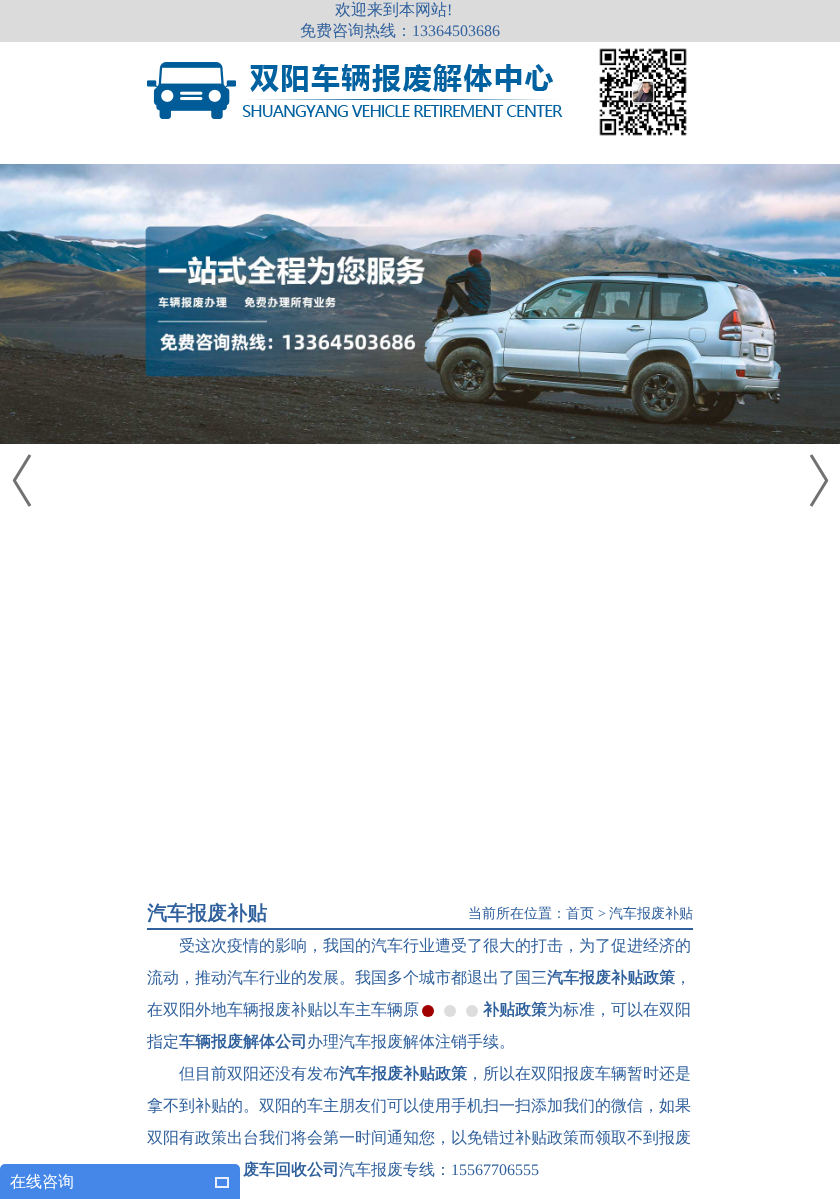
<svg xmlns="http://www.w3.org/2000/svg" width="840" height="1199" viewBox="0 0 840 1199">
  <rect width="100%" height="100%" fill="#fff"/>
  <path d="M0 0h840v42H0z" fill="#dbdbdb"/>
  <image x="147" y="62" width="416" height="57" href="img/1.png"/>
  <image x="599" y="48" width="88" height="88" href="img/2.png"/>
  <image x="0" y="164" width="840" height="280" href="img/3.png"/>
  <image x="12" y="454" width="20" height="53" href="img/4.png"/>
  <image x="809" y="454" width="20" height="53" href="img/5.png"/>
  <circle cx="428" cy="1011" r="6" fill="#a10000"/>
  <circle cx="450" cy="1011" r="6" fill="#ddd"/>
  <circle cx="472" cy="1011" r="6" fill="#ddd"/>
  <path d="M147 928h546v2H147z" fill="#31619d"/>
  <rect y="1164" width="240" height="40" rx="5" fill="#4587e8"/>
  <image x="215" y="1177" width="14" height="11" href="img/6.png"/>
  <text x="335" y="15" font-family="WenQuanYi Zen Hei" font-size="16" font-weight="500" fill="#31619d">欢迎来到本网站</text>
  <text x="447" y="15" font-family="Liberation Serif" font-size="16" fill="#31619d">!</text>
  <text x="300" y="36" font-family="WenQuanYi Zen Hei" font-size="16" font-weight="500" fill="#31619d">免费咨询热线：</text>
  <text x="412" y="36" font-family="Liberation Serif" font-size="16" fill="#31619d">13364503686</text>
  <text x="147" y="920" font-family="WenQuanYi Zen Hei" font-size="20" font-weight="bold" fill="#31619d">汽车报废补贴</text>
  <text x="468" y="918" font-family="WenQuanYi Zen Hei" font-size="14" font-weight="500" fill="#31619d">当前所在位置：首页</text>
  <text x="598" y="918" font-family="Liberation Serif" font-size="14" fill="#31619d">&gt;</text>
  <text x="609" y="918" font-family="WenQuanYi Zen Hei" font-size="14" font-weight="500" fill="#31619d">汽车报废补贴</text>
  <g font-family="WenQuanYi Zen Hei" font-size="16" font-weight="500" fill="#31619d">
    <text x="179" y="951">受这次疫情的影响，我国的汽车行业遭受了很大的打击，为了促进经济的</text>
    <text x="147" y="983">流动，推动汽车行业的发展。我国多个城市都退出了国三</text>
  </g>
  <text x="547" y="983" font-family="WenQuanYi Zen Hei" font-size="16" font-weight="bold" fill="#31619d">汽车报废补贴政策</text>
  <g font-family="WenQuanYi Zen Hei" font-size="16" font-weight="500" fill="#31619d">
    <text x="675" y="983">，</text>
    <text x="147" y="1015">在双阳外地车辆报废补贴以车主车辆原</text>
  </g>
  <text x="483" y="1015" font-family="WenQuanYi Zen Hei" font-size="16" font-weight="bold" fill="#31619d">补贴政策</text>
  <g font-family="WenQuanYi Zen Hei" font-size="16" font-weight="500" fill="#31619d">
    <text x="547" y="1015">为标准，可以在双阳</text>
    <text x="147" y="1047">指定</text>
  </g>
  <text x="179" y="1047" font-family="WenQuanYi Zen Hei" font-size="16" font-weight="bold" fill="#31619d">车辆报废解体公司</text>
  <g font-family="WenQuanYi Zen Hei" font-size="16" font-weight="500" fill="#31619d">
    <text x="307" y="1047">办理汽车报废解体注销手续。</text>
    <text x="179" y="1079">但目前双阳还没有发布</text>
  </g>
  <text x="339" y="1079" font-family="WenQuanYi Zen Hei" font-size="16" font-weight="bold" fill="#31619d">汽车报废补贴政策</text>
  <g font-family="WenQuanYi Zen Hei" font-size="16" font-weight="500" fill="#31619d">
    <text x="467" y="1079">，所以在双阳报废车辆暂时还是</text>
    <text x="147" y="1111">拿不到补贴的。双阳的车主朋友们可以使用手机扫一扫添加我们的微信，如果</text>
    <text x="147" y="1143">双阳有政策出台我们将会第一时间通知您，以免错过补贴政策而领取不到报废</text>
  </g>
  <text x="243" y="1175" font-family="WenQuanYi Zen Hei" font-size="16" font-weight="bold" fill="#31619d">废车回收公司</text>
  <text x="339" y="1175" font-family="WenQuanYi Zen Hei" font-size="16" font-weight="500" fill="#31619d">汽车报废专线：</text>
  <text x="451" y="1175" font-family="Liberation Serif" font-size="16" fill="#31619d">15567706555</text>
  <text x="10" y="1187" font-family="WenQuanYi Zen Hei" font-size="16" font-weight="500" fill="#fff">在线咨询</text>
</svg>
